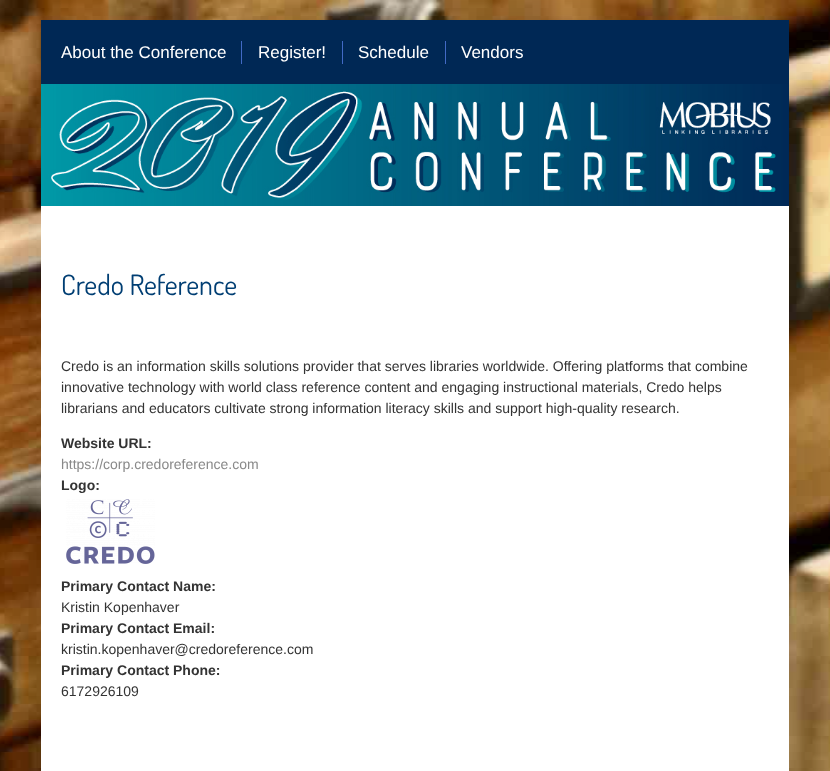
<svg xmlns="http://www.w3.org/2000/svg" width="830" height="771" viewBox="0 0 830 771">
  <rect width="100%" height="100%" fill="#fff"/>
  <image x="0" y="0" width="830" height="771" href="img/1.png"/>
  <path d="M41 30h748v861H41z" fill="#00000033" filter="blur(40px)"/>
  <path d="M41 206h748v565H41z" fill="#fff"/>
  <path d="M41 20h748v64H41z" fill="#002855"/>
  <path d="M241 41h1v23H241z" fill="#426ac5"/>
  <path d="M342 41h1v23H342z" fill="#426ac5"/>
  <path d="M445 41h1v23H445z" fill="#426ac5"/>
  <image x="41" y="84" width="748" height="122" href="img/2.png"/>
  <image x="66" y="499" width="89" height="65" href="img/3.png"/>
  <g font-family="Liberation Sans" font-size="17" fill="#fff">
    <text x="61" y="58">About the Conference</text>
    <text x="258" y="58">Register!</text>
    <text x="358" y="58">Schedule</text>
    <text x="461" y="58">Vendors</text>
  </g>
  <text x="61" y="295" font-family="Dosis" font-size="28" fill="#003e73">Credo Reference</text>
  <g font-family="Liberation Sans" font-size="14" fill="#333">
    <text x="61" y="371">Credo is an information skills solutions provider that serves libraries worldwide. Offering platforms that combine</text>
    <text x="61" y="392">innovative technology with world class reference content and engaging instructional materials, Credo helps</text>
    <text x="61" y="413">librarians and educators cultivate strong information literacy skills and support high-quality research.</text>
  </g>
  <text x="61" y="448" font-family="Liberation Sans" font-size="14" font-weight="bold" fill="#333">Website URL:</text>
  <text x="61" y="469" font-family="Liberation Sans" font-size="14" fill="#898989">https://corp.credoreference.com</text>
  <g font-family="Liberation Sans" font-size="14" font-weight="bold" fill="#333">
    <text x="61" y="490">Logo:</text>
    <text x="61" y="591">Primary Contact Name:</text>
  </g>
  <text x="61" y="612" font-family="Liberation Sans" font-size="14" fill="#333">Kristin Kopenhaver</text>
  <text x="61" y="633" font-family="Liberation Sans" font-size="14" font-weight="bold" fill="#333">Primary Contact Email:</text>
  <text x="61" y="654" font-family="Liberation Sans" font-size="14" fill="#333">kristin.kopenhaver@credoreference.com</text>
  <text x="61" y="675" font-family="Liberation Sans" font-size="14" font-weight="bold" fill="#333">Primary Contact Phone:</text>
  <text x="61" y="696" font-family="Liberation Sans" font-size="14" fill="#333">6172926109</text>
</svg>
